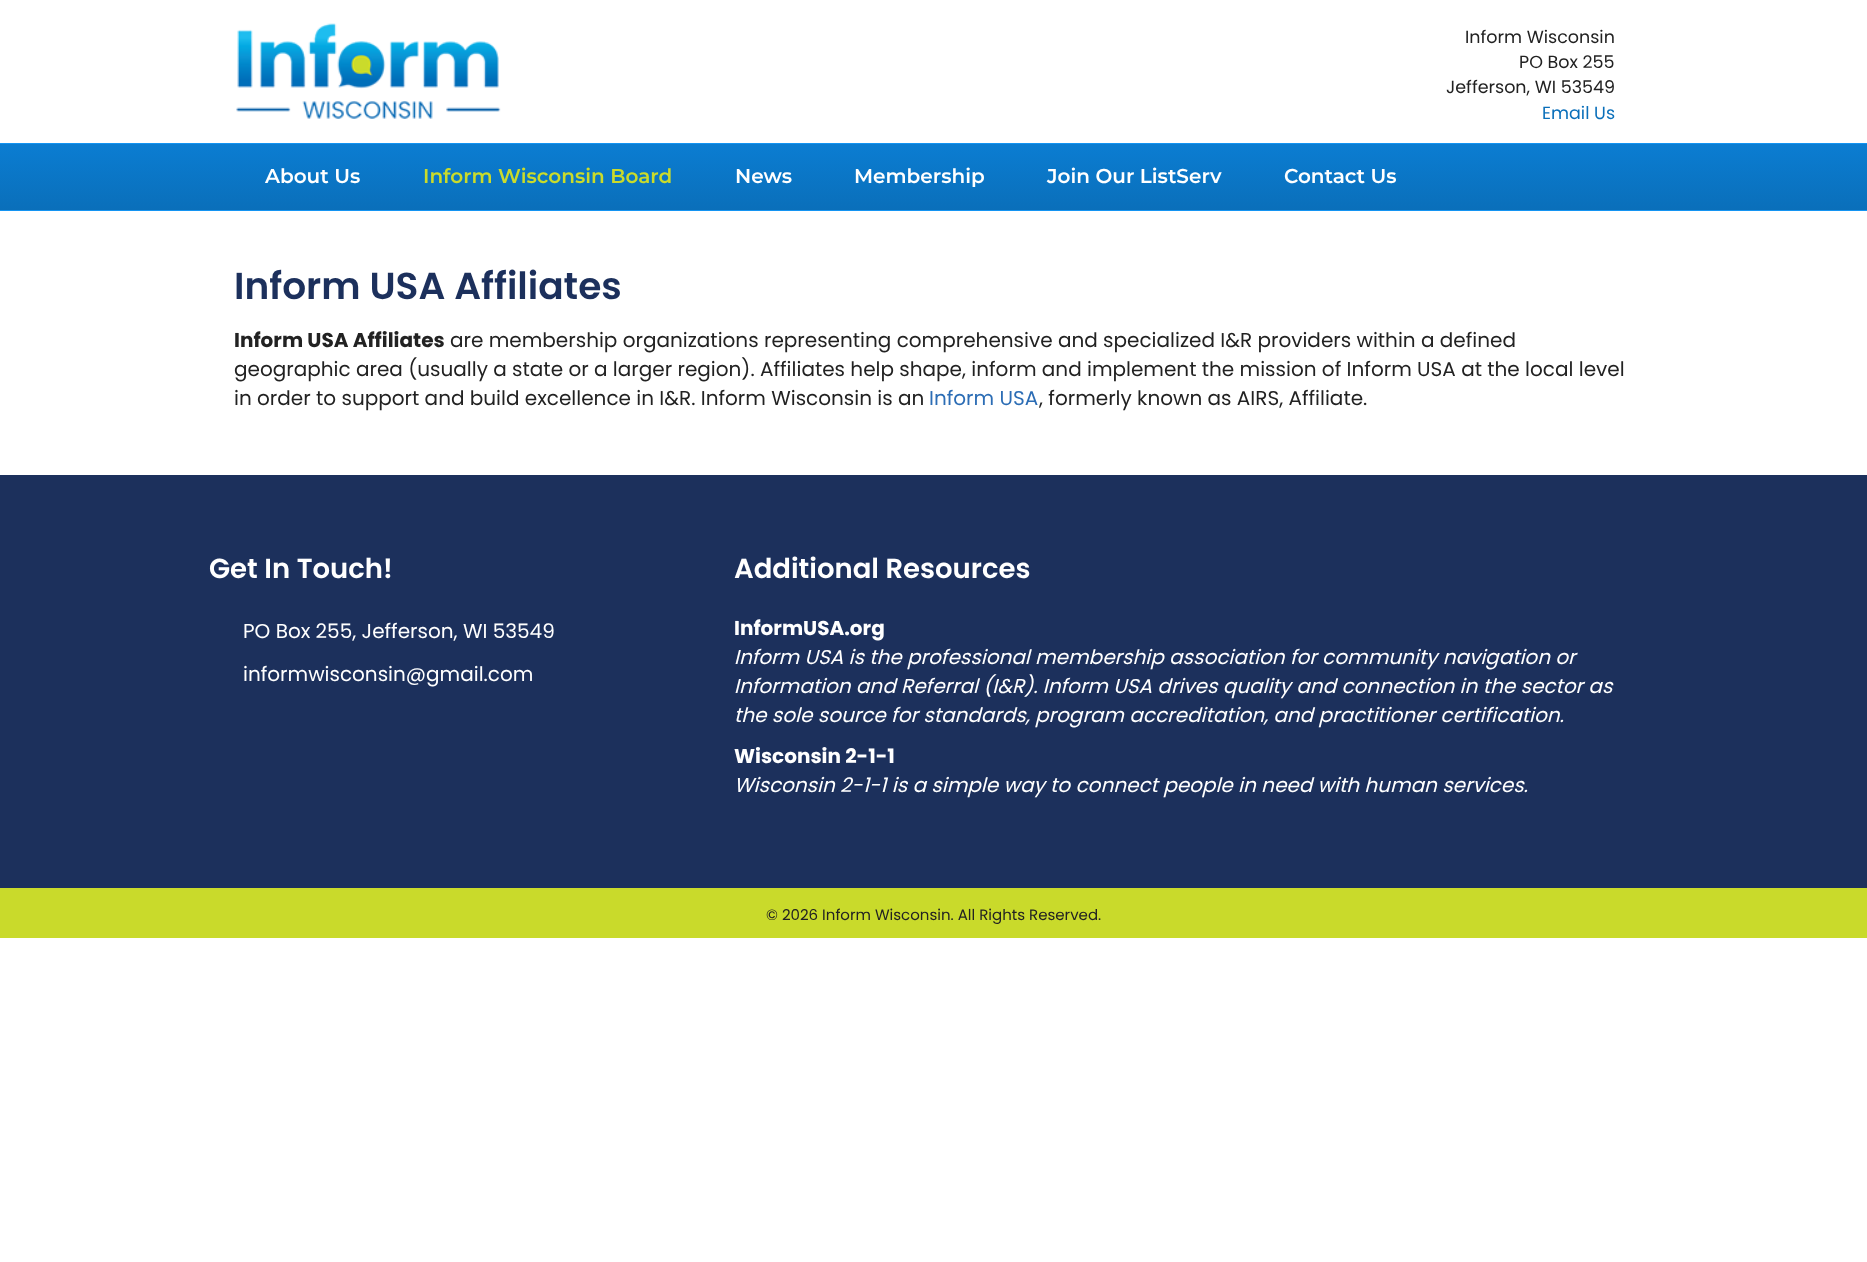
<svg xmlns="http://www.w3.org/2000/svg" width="1867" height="1262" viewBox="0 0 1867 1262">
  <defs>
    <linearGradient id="g1" gradientUnits="userSpaceOnUse" x1="934" y1="144" x2="934" y2="210"><stop offset="0" stop-color="#0b7dd2"/><stop offset="1" stop-color="#0a6fba"/></linearGradient>
  </defs>
  <rect width="100%" height="100%" fill="#fff"/>
  <image x="236" y="23" width="265" height="96" href="img/1.png"/>
  <path d="M0 144h1867v66H0z" fill="url(#g1)"/>
  <path d="M0 143h1867v1H0z" fill="#1494f2"/>
  <path d="M0 210h1867v1H0z" fill="#1494f2"/>
  <path d="M0 475h1867v413H0z" fill="#1c305c"/>
  <path d="M0 888h1867v50H0z" fill="#c9da2b"/>
  <g font-family="Poppins" font-size="17.5" fill="#222">
    <text x="1465" y="43">Inform Wisconsin</text>
    <text x="1519" y="68">PO Box 255</text>
    <text x="1446" y="93">Jefferson, WI 53549</text>
  </g>
  <text x="1542" y="119" font-family="Poppins" font-size="17.5" fill="#0a6fba">Email Us</text>
  <text x="265" y="183" font-family="Montserrat" font-size="20" font-weight="100" fill="#fff">About Us</text>
  <text x="423" y="183" font-family="Montserrat" font-size="20" font-weight="100" fill="#cadb2b">Inform Wisconsin Board</text>
  <g font-family="Montserrat" font-size="20" font-weight="100" fill="#fff">
    <text x="735" y="183">News</text>
    <text x="854" y="183">Membership</text>
    <text x="1047" y="183">Join Our ListServ</text>
    <text x="1284" y="183">Contact Us</text>
  </g>
  <text x="234" y="299" font-family="Poppins" font-size="37.5" font-weight="600" fill="#1c305c">Inform USA Affiliates</text>
  <text x="234" y="347" font-family="Poppins" font-size="20" font-weight="bold" fill="#222">Inform USA Affiliates</text>
  <g font-family="Poppins" font-size="20" fill="#222">
    <text x="450" y="347">are membership organizations representing comprehensive and specialized I&amp;R providers within a defined</text>
    <text x="234" y="376">geographic area (usually a state or a larger region). Affiliates help shape, inform and implement the mission of Inform USA at the local level</text>
    <text x="234" y="405">in order to support and build excellence in I&amp;R. Inform Wisconsin is an</text>
  </g>
  <text x="929" y="405" font-family="Poppins" font-size="20" fill="#2c6db5">Inform USA</text>
  <text x="1039" y="405" font-family="Poppins" font-size="20" fill="#222">, formerly known as AIRS, Affiliate.</text>
  <text x="209" y="578" font-family="Poppins" font-size="27.5" font-weight="600" fill="#fff">Get In Touch!</text>
  <g font-family="Poppins" font-size="20" fill="#fff">
    <text x="243" y="638">PO Box 255, Jefferson, WI 53549</text>
    <text x="243" y="681">informwisconsin@gmail.com</text>
  </g>
  <text x="734" y="578" font-family="Poppins" font-size="27.5" font-weight="600" fill="#fff">Additional Resources</text>
  <text x="734" y="635" font-family="Poppins" font-size="20" font-weight="bold" fill="#fff">InformUSA.org</text>
  <g font-family="Poppins" font-size="20" font-style="italic" fill="#fff">
    <text x="734" y="664">Inform USA is the professional membership association for community navigation or</text>
    <text x="734" y="693">Information and Referral (I&amp;R). Inform USA drives quality and connection in the sector as</text>
    <text x="734" y="722">the sole source for standards, program accreditation, and practitioner certification.</text>
  </g>
  <text x="734" y="763" font-family="Poppins" font-size="20" font-weight="bold" fill="#fff">Wisconsin 2-1-1</text>
  <text x="734" y="792" font-family="Poppins" font-size="20" font-style="italic" fill="#fff">Wisconsin 2-1-1 is a simple way to connect people in need with human services.</text>
  <text x="766" y="920" font-family="Poppins" font-size="15" fill="#222">© 2026 Inform Wisconsin. All Rights Reserved.</text>
</svg>
